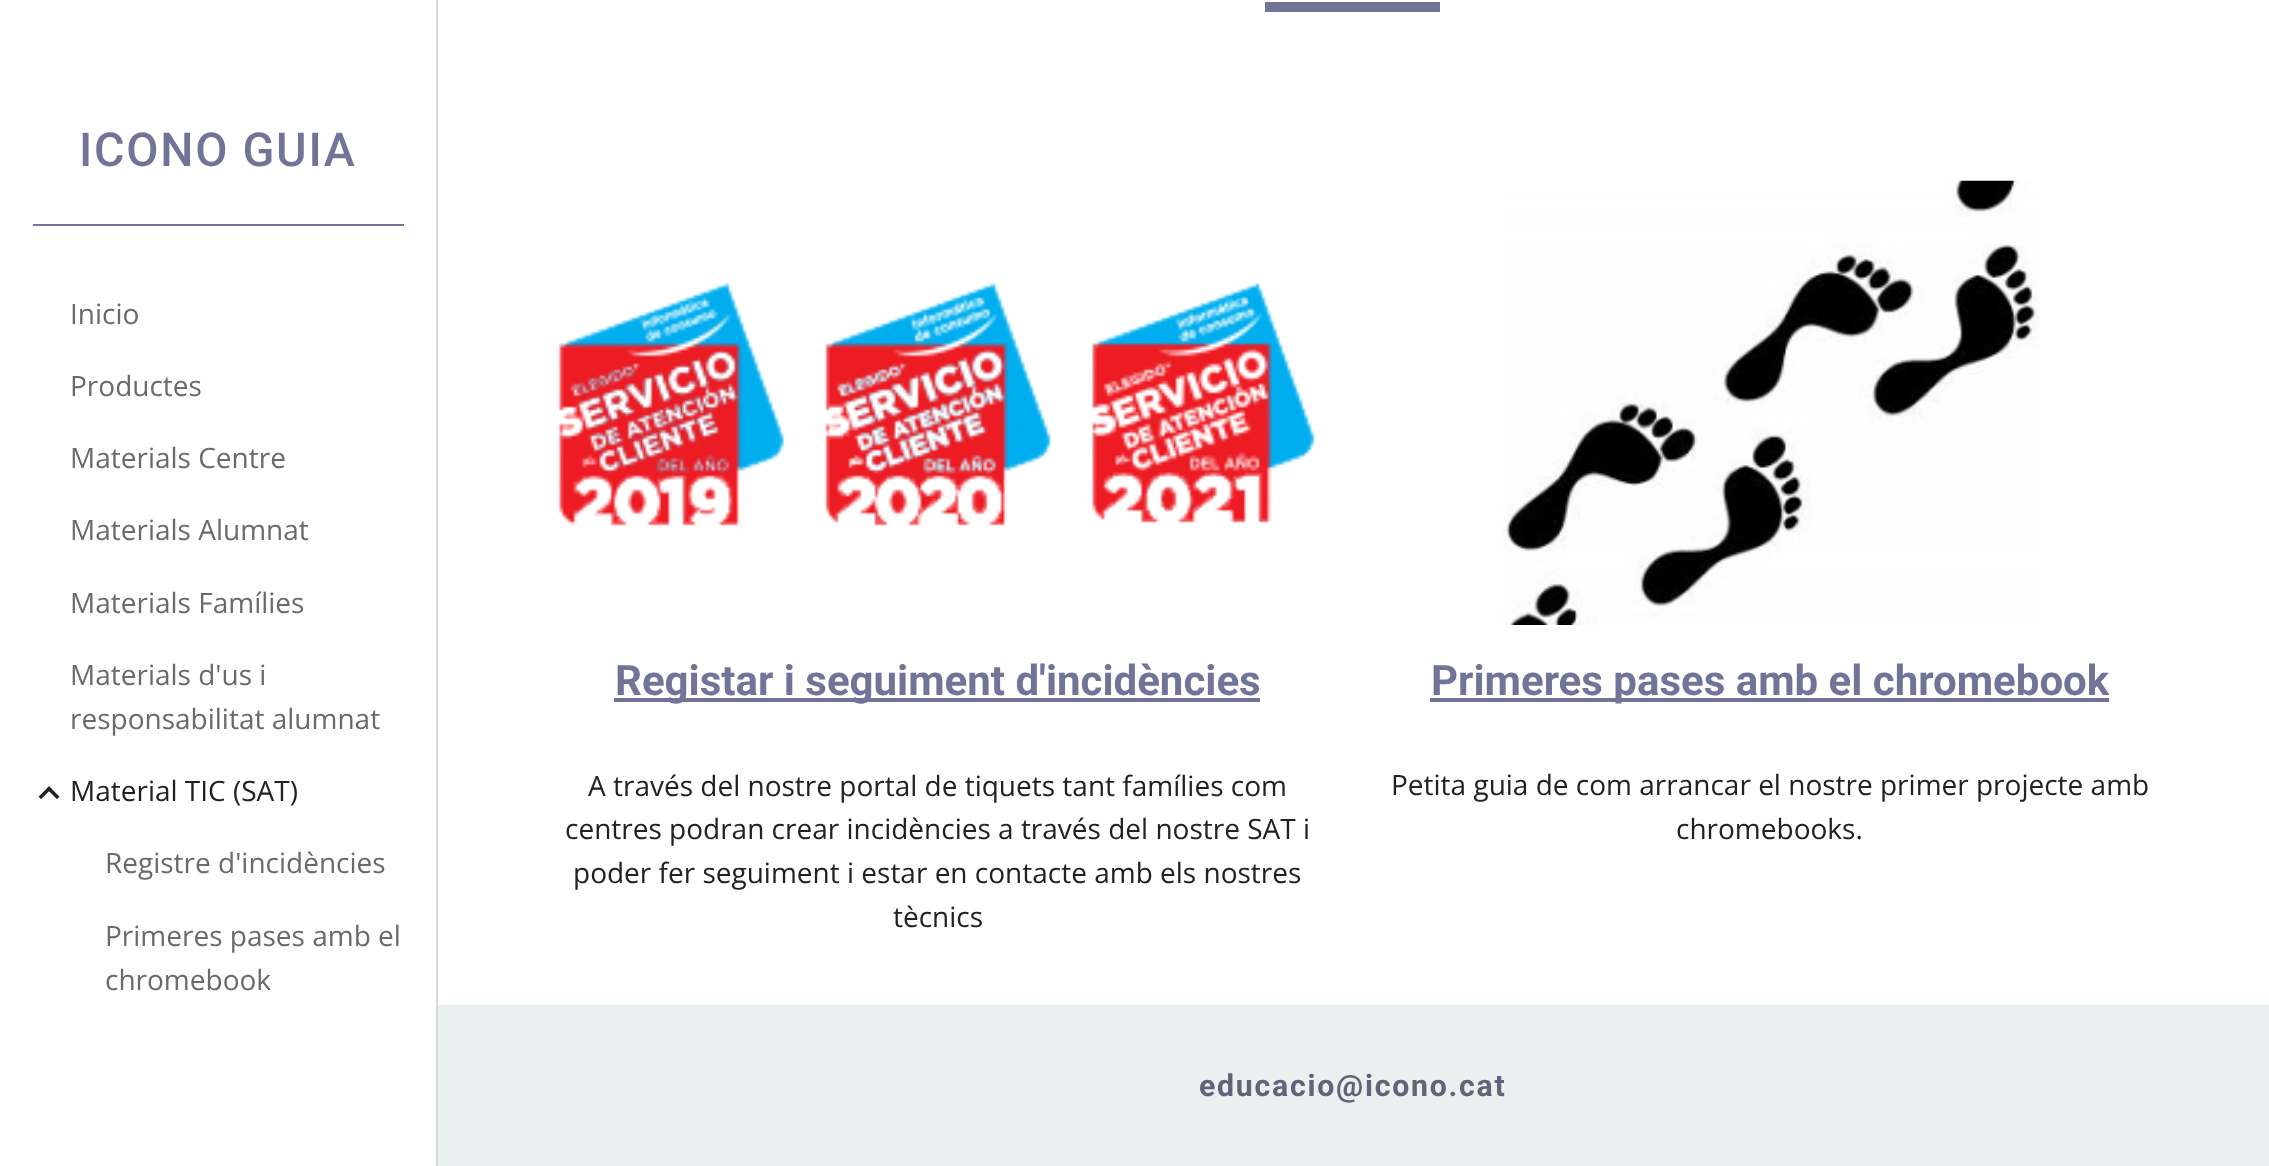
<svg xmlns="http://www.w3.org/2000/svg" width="2269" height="1166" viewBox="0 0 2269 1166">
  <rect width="100%" height="100%" fill="#fff"/>
  <path d="M436 0h2v1166H436z" fill="#d9d9d9"/>
  <path d="M33 224h371v2H33z" fill="#6f7498"/>
  <image x="38" y="786" width="22" height="13" href="img/1.png"/>
  <path d="M1265 2h175v10H1265z" fill="#6f7498"/>
  <image x="558" y="282" width="757" height="244" href="img/2.png"/>
  <path d="M614 698h646v4H614z" fill="#6f7498"/>
  <image x="1503" y="180" width="537" height="445" href="img/3.png"/>
  <path d="M1430 698h679v4H1430z" fill="#6f7498"/>
  <path d="M438 1005h1831v161H438z" fill="#e8f0f0"/>
  <text x="79" y="166" font-family="Roboto" font-size="46.75" font-weight="500" letter-spacing="1.75" fill="#6f7498">ICONO GUIA</text>
  <g font-family="Open Sans" font-size="28" fill="#6a6a6a">
    <text x="70" y="324">Inicio</text>
    <text x="70" y="396">Productes</text>
    <text x="70" y="468">Materials Centre</text>
    <text x="70" y="540">Materials Alumnat</text>
    <text x="70" y="613">Materials Famílies</text>
    <text x="70" y="685">Materials d'us i</text>
    <text x="70" y="729">responsabilitat alumnat</text>
  </g>
  <text x="70" y="801" font-family="Open Sans" font-size="28" fill="#212121">Material TIC (SAT)</text>
  <g font-family="Open Sans" font-size="28" fill="#6a6a6a">
    <text x="105" y="873">Registre d'incidències</text>
    <text x="105" y="946">Primeres pases amb el</text>
    <text x="105" y="990">chromebook</text>
  </g>
  <text x="615" y="695" font-family="Roboto" font-size="42" font-weight="bold" fill="#6f7498">Registar i seguiment d'incidències</text>
  <g font-family="Open Sans" font-size="28" fill="#212121">
    <text x="588" y="796">A través del nostre portal de tiquets tant famílies com</text>
    <text x="565" y="839">centres podran crear incidències a través del nostre SAT i</text>
    <text x="573" y="883">poder fer seguiment i estar en contacte amb els nostres</text>
    <text x="893" y="927">tècnics</text>
  </g>
  <text x="1431" y="695" font-family="Roboto" font-size="42" font-weight="bold" fill="#6f7498">Primeres pases amb el chromebook</text>
  <g font-family="Open Sans" font-size="28" fill="#212121">
    <text x="1391" y="795">Petita guia de com arrancar el nostre primer projecte amb</text>
    <text x="1676" y="839">chromebooks.</text>
  </g>
  <text x="1199" y="1096" font-family="Roboto" font-size="30.25" font-weight="bold" letter-spacing="1.75" fill="#60637a">educacio@icono.cat</text>
</svg>
